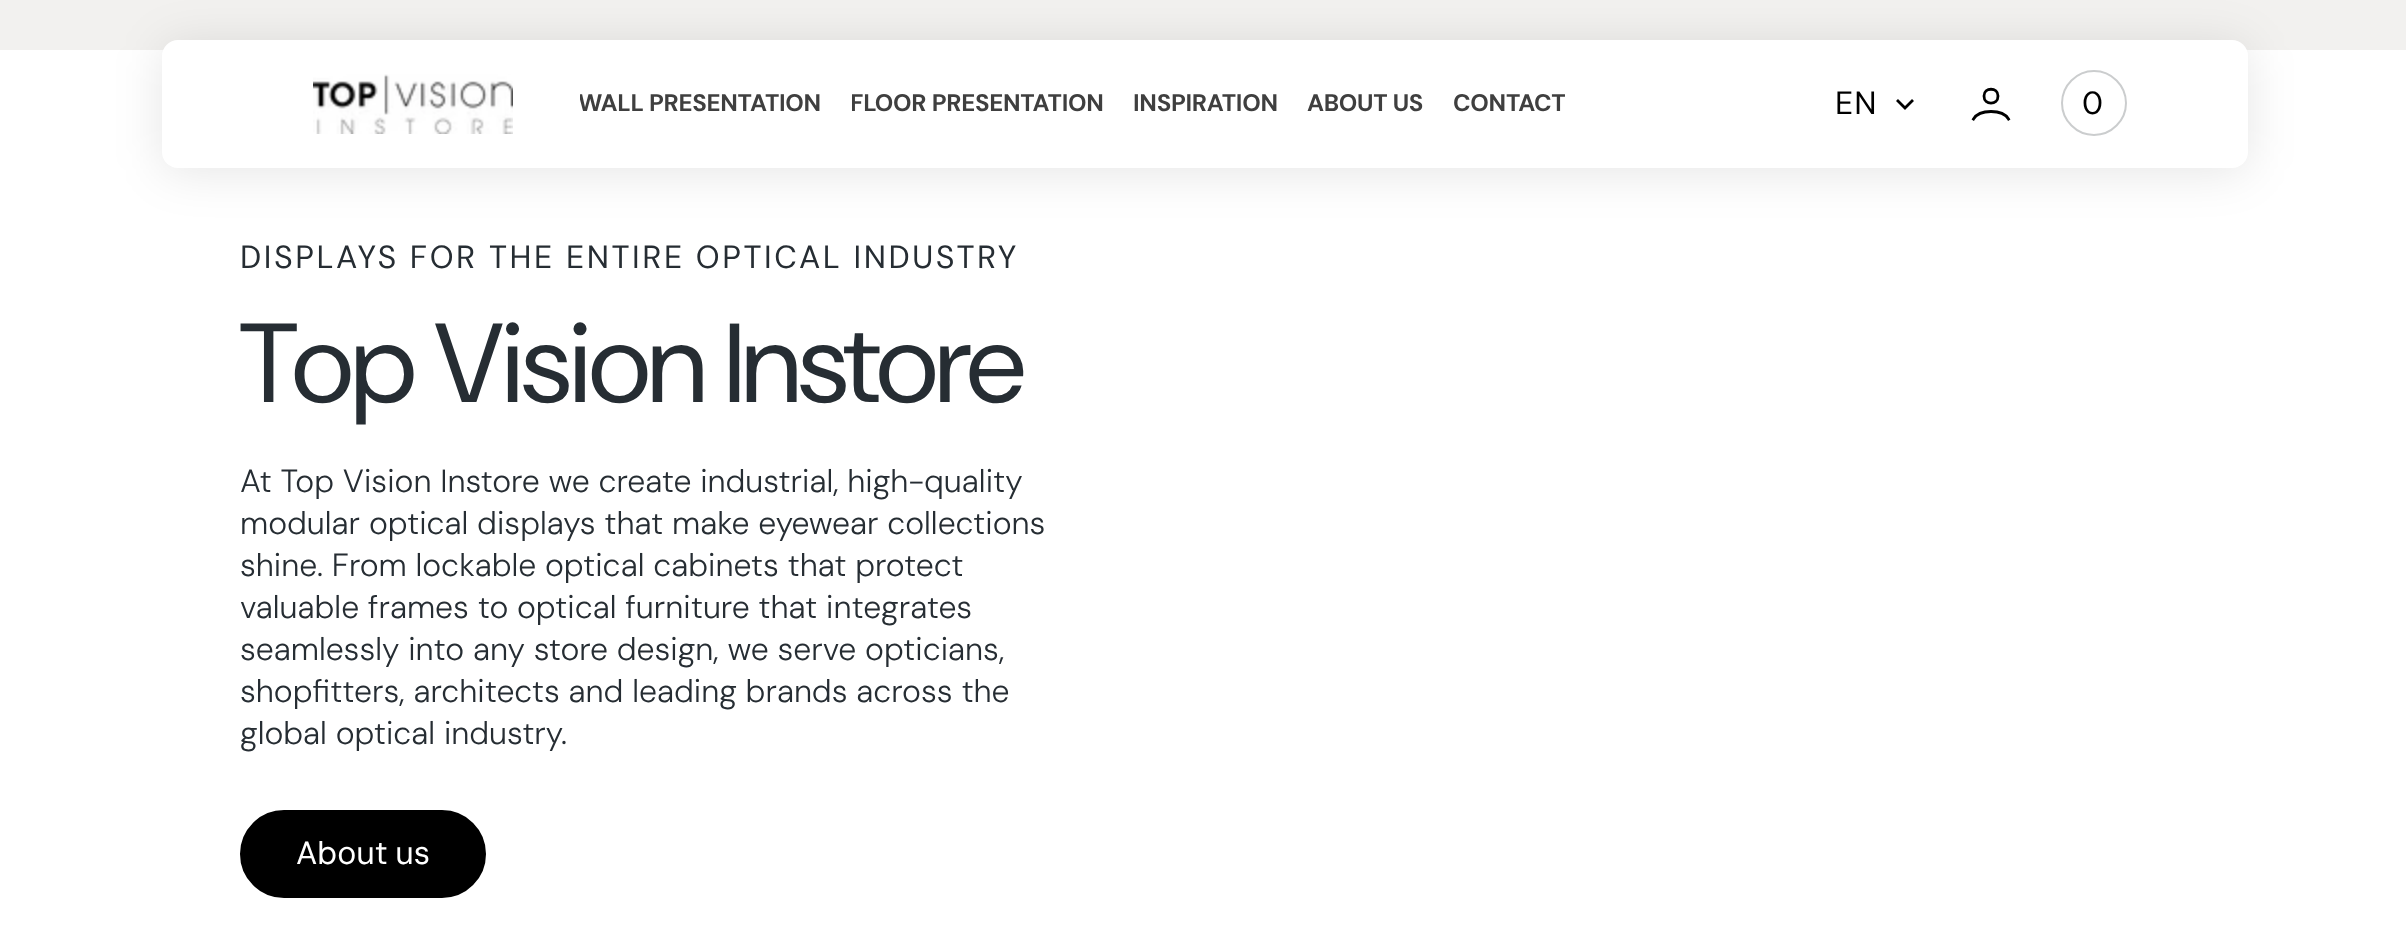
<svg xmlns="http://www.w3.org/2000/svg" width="2406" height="943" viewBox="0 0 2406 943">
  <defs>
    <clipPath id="clip1"><path d="M580 90h242v28H580z"/></clipPath>
    <clipPath id="clip2"><path d="M852 90h252v28H852z"/></clipPath>
    <clipPath id="clip3"><path d="M1454 90h112v28H1454z"/></clipPath>
  </defs>
  <rect width="100%" height="100%" fill="#fff"/>
  <path d="M0 0h2406v50H0z" fill="#f2f1ef"/>
  <rect x="162" y="44" width="2086" height="128" rx="16" fill="#0000001a" filter="blur(24px)"/>
  <rect x="162" y="40" width="2086" height="128" rx="16" fill="#fff"/>
  <image x="313" y="74" width="200" height="60" href="img/1.png"/>
  <path d="M1897 100L1905 108L1913 100" fill="none" stroke="#000" stroke-width="2.8"/>
  <path d="M1973.5 119C1979.5 109 2002.5 109 2008.5 119M1998 96C1998 105.5 1984 105.5 1984 96C1984 87 1998 87 1998 96Z" fill="none" stroke="#000" stroke-width="2.8" stroke-linecap="square"/>
  <rect x="242" y="812" width="242" height="84" rx="42" fill="#000" stroke="#000" stroke-width="4"/>
  <g clip-path="url(#clip1)">
    <text x="578" y="111" font-family="DM Sans" font-size="24" font-weight="bold" letter-spacing="-0.3" fill="#3f3f3f">WALL PRESENTATION</text>
  </g>
  <g clip-path="url(#clip2)">
    <text x="850" y="111" font-family="DM Sans" font-size="24" font-weight="bold" letter-spacing="-0.3" fill="#3f3f3f">FLOOR PRESENTATION</text>
  </g>
  <g font-family="DM Sans" font-size="24" font-weight="bold" letter-spacing="-0.3" fill="#3f3f3f">
    <text x="1133" y="111">INSPIRATION</text>
    <text x="1307" y="111">ABOUT US</text>
  </g>
  <g clip-path="url(#clip3)">
    <text x="1453" y="111" font-family="DM Sans" font-size="24" font-weight="bold" letter-spacing="-0.3" fill="#3f3f3f">CONTACT</text>
  </g>
  <g font-family="DM Sans" font-size="32" letter-spacing="1" fill="#000">
    <text x="1835" y="114">EN</text>
    <text x="2082" y="114">0</text>
  </g>
  <path d="M2062 103C2062 85.5 2076.5 71 2094 71C2111.5 71 2126 85.5 2126 103C2126 120.5 2111.5 135 2094 135C2076.5 135 2062 120.5 2062 103Z" fill="none" stroke="#cbcdce" stroke-width="2"/>
  <text x="240" y="268" font-family="DM Sans" font-size="32" letter-spacing="2.55" fill="#262d33">DISPLAYS FOR THE ENTIRE OPTICAL INDUSTRY</text>
  <text x="240" y="402" font-family="'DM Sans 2'" font-size="112" letter-spacing="-2" fill="#262d33">Top Vision Instore</text>
  <g font-family="DM Sans" font-size="32" font-weight="300" fill="#262d33">
    <text x="240" y="492">At Top Vision Instore we create industrial, high-quality</text>
    <text x="240" y="534">modular optical displays that make eyewear collections</text>
    <text x="240" y="576">shine. From lockable optical cabinets that protect</text>
    <text x="240" y="618">valuable frames to optical furniture that integrates</text>
    <text x="240" y="660">seamlessly into any store design, we serve opticians,</text>
    <text x="240" y="702">shopfitters, architects and leading brands across the</text>
    <text x="240" y="744">global optical industry.</text>
  </g>
  <text x="296" y="864" word-spacing="-1" font-family="DM Sans" font-size="32" fill="#fff">About us</text>
</svg>
